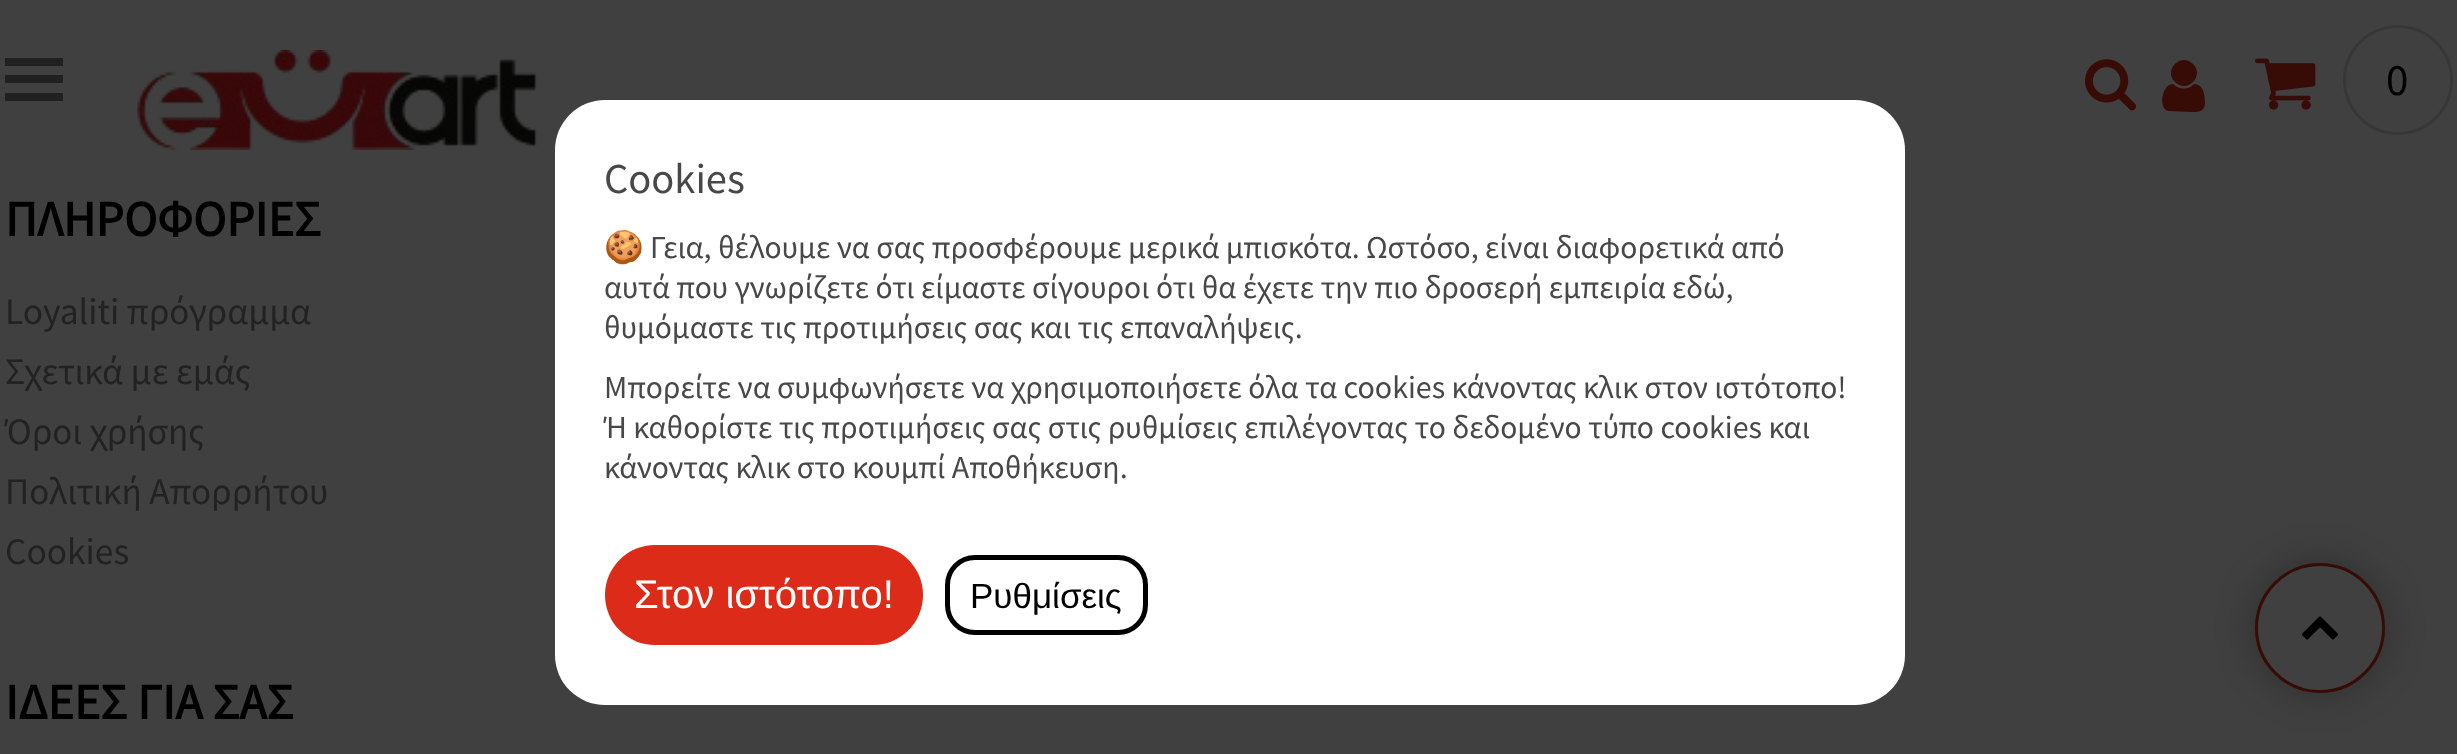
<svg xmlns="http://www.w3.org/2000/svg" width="2457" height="754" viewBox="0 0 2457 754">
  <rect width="100%" height="100%" fill="#404040"/>
  <path d="M5 75h58v8H5z" fill="#202020"/>
  <path d="M5 58h58v8H5z" fill="#202020"/>
  <path d="M5 93h58v8H5z" fill="#202020"/>
  <image x="137" y="50" width="401" height="100" href="img/1.png"/>
  <image x="2085" y="59" width="52" height="52" href="img/2.png"/>
  <path d="M2205 103C2205 111 2200 112 2193 112L2168 111C2158 108 2162 84 2173 84C2179 90 2189 90 2194 84C2204 84 2205 96 2205 103ZM2193 64C2205 76 2187 94 2175 82C2163 70 2181 52 2193 64Z" fill="#370b06"/>
  <image x="2255" y="58" width="61" height="52" href="img/3.png"/>
  <circle cx="2398" cy="80" r="53.5" fill="none" stroke="#373737" stroke-width="3"/>
  <rect x="555" y="100" width="1350" height="605" rx="50" fill="#fff"/>
  <rect x="605" y="545" width="318" height="100" rx="50" fill="#dc2b19"/>
  <rect x="947.5" y="557.5" width="198" height="75" rx="27.5" fill="none" stroke="#000" stroke-width="5"/>
  <rect x="2255" y="563" width="130" height="130" rx="65" fill="#0000004d" filter="blur(19px)"/>
  <circle cx="2320" cy="628" r="63.5" fill="#404040" stroke="#370b06" stroke-width="3"/>
  <image x="2302" y="616" width="36" height="24" href="img/4.png"/>
  <text x="2386" y="95" font-family="Source Sans Pro" font-size="45" fill="#000">0</text>
  <text x="5" y="236" font-family="Source Sans Pro" font-size="50" font-weight="bold" fill="#000">ΠΛΗΡΟΦΟΡΙΕΣ</text>
  <g font-family="Source Sans Pro" font-size="37.5" fill="#222">
    <text x="5" y="324">Loyaliti πρόγραμμα</text>
    <text x="5" y="384">Σχετικά με εμάς</text>
    <text x="5" y="444">Όροι χρήσης</text>
    <text x="5" y="504">Πολιτική Απορρήτου</text>
    <text x="5" y="564">Cookies</text>
  </g>
  <text x="5" y="719" font-family="Source Sans Pro" font-size="50" font-weight="bold" fill="#000">ΙΔΕΕΣ ΓΙΑ ΣΑΣ</text>
  <text x="604" y="193" font-family="Source Sans Pro" font-size="42.5" fill="#484848">Cookies</text>
  <text x="604" y="258" font-family="Noto Color Emoji" font-size="32" fill="#484848">🍪</text>
  <g font-family="Source Sans Pro" font-size="32" fill="#484848">
    <text x="650" y="258">Γεια, θέλουμε να σας προσφέρουμε μερικά μπισκότα. Ωστόσο, είναι διαφορετικά από</text>
    <text x="604" y="298">αυτά που γνωρίζετε ότι είμαστε σίγουροι ότι θα έχετε την πιο δροσερή εμπειρία εδώ,</text>
    <text x="604" y="338">θυμόμαστε τις προτιμήσεις σας και τις επαναλήψεις.</text>
    <text x="604" y="398">Μπορείτε να συμφωνήσετε να χρησιμοποιήσετε όλα τα cookies κάνοντας κλικ στον ιστότοπο!</text>
    <text x="604" y="438">Ή καθορίστε τις προτιμήσεις σας στις ρυθμίσεις επιλέγοντας το δεδομένο τύπο cookies και</text>
    <text x="604" y="478">κάνοντας κλικ στο κουμπί Αποθήκευση.</text>
  </g>
  <text x="634" y="608" font-family="Liberation Sans" font-size="40" fill="#fff">Στον ιστότοπο!</text>
  <text x="970" y="608" font-family="Liberation Sans" font-size="35" fill="#000">Ρυθμίσεις</text>
</svg>
